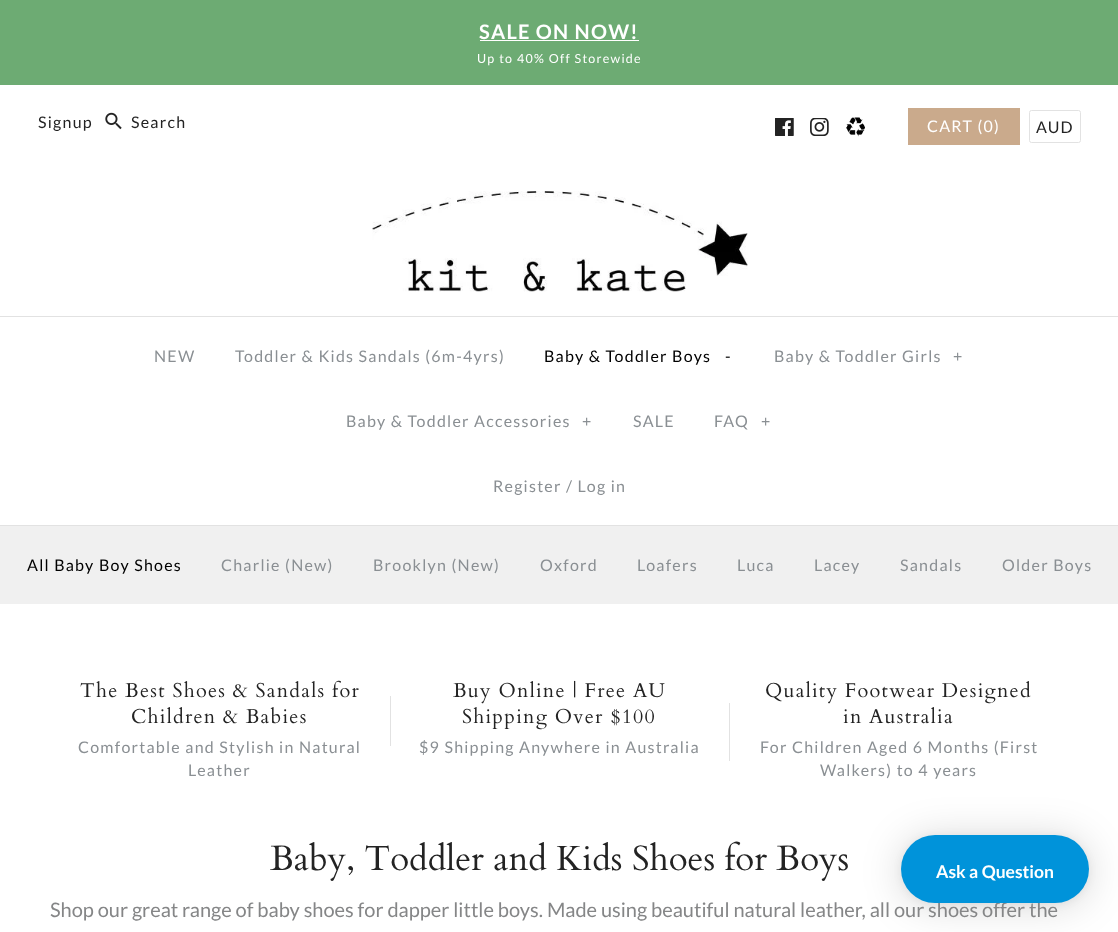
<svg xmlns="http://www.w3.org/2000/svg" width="1118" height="932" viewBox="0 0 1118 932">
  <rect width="100%" height="100%" fill="#fff"/>
  <path d="M0 0h1118v85H0z" fill="#6dab73"/>
  <path d="M480 40h159v1H480z" fill="#fff"/>
  <image x="105" y="112" width="17" height="18" href="img/1.png"/>
  <image x="775" y="118" width="19" height="18" href="img/2.png"/>
  <image x="810" y="118" width="19" height="18" href="img/3.png"/>
  <image x="846" y="117" width="19" height="20" href="img/4.png"/>
  <path d="M908 108h112v37H908z" fill="#caaa8c"/>
  <rect x="1029.5" y="110.5" width="51" height="32" rx="2" fill="none" stroke="#e2e2e2"/>
  <image x="372" y="191" width="376" height="101" href="img/5.png"/>
  <path d="M0 316h1118v1H0z" fill="#e2e2e2"/>
  <path d="M0 526h1118v78H0z" fill="#f0f0f0"/>
  <path d="M0 525h1118v1H0z" fill="#e2e2e2"/>
  <path d="M390 696h1v50H390z" fill="#e2e2e2"/>
  <path d="M729 703h1v58H729z" fill="#e2e2e2"/>
  <rect x="901" y="838" width="188" height="67" rx="33.5" fill="#00000029" filter="blur(20px)"/>
  <rect x="901" y="836" width="188" height="68" rx="34" fill="#0000000f" filter="blur(4px)"/>
  <text x="479" y="39" font-family="Lato" font-size="20" font-weight="bold" letter-spacing="1.25" fill="#fff">SALE ON NOW!</text>
  <text x="477" y="63" font-family="Lato" font-size="12.5" letter-spacing="1.25" fill="#fff">Up to 40% Off Storewide</text>
  <g font-family="Lato" font-size="16" letter-spacing="1.25" fill="#232323">
    <text x="38" y="128">Signup</text>
    <text x="131" y="128">Search</text>
  </g>
  <text x="927" y="132" font-family="Lato" font-size="16" letter-spacing="1.25" fill="#fff">CART (0)</text>
  <text x="1036" y="133" font-family="Lato" font-size="16" letter-spacing="1.25" fill="#232323">AUD</text>
  <g font-family="Lato" font-size="16" letter-spacing="1.25" fill="#8a8f93">
    <text x="154" y="362">NEW</text>
    <text x="235" y="362">Toddler &amp; Kids Sandals (6m-4yrs)</text>
  </g>
  <g font-family="Lato" font-size="16" letter-spacing="1.25" fill="#000">
    <text x="544" y="362">Baby &amp; Toddler Boys</text>
    <text x="725" y="362">-</text>
  </g>
  <g font-family="Lato" font-size="16" letter-spacing="1.25" fill="#8a8f93">
    <text x="774" y="362">Baby &amp; Toddler Girls</text>
    <text x="953" y="362">+</text>
    <text x="346" y="427">Baby &amp; Toddler Accessories</text>
    <text x="582" y="427">+</text>
    <text x="633" y="427">SALE</text>
    <text x="714" y="427">FAQ</text>
    <text x="761" y="427">+</text>
    <text x="493" y="492">Register / Log in</text>
  </g>
  <text x="27" y="571" font-family="Lato" font-size="16" letter-spacing="1.25" fill="#000">All Baby Boy Shoes</text>
  <g font-family="Lato" font-size="16" letter-spacing="1.25" fill="#8a8f93">
    <text x="221" y="571">Charlie (New)</text>
    <text x="373" y="571">Brooklyn (New)</text>
    <text x="540" y="571">Oxford</text>
    <text x="637" y="571">Loafers</text>
    <text x="737" y="571">Luca</text>
    <text x="814" y="571">Lacey</text>
    <text x="900" y="571">Sandals</text>
    <text x="1002" y="571">Older Boys</text>
  </g>
  <g font-family="Cardo" font-size="20" letter-spacing="1.25" fill="#232323">
    <text x="80" y="697">The Best Shoes &amp; Sandals for</text>
    <text x="131" y="723">Children &amp; Babies</text>
  </g>
  <g font-family="Lato" font-size="16" letter-spacing="1.25" fill="#8a8f93">
    <text x="78" y="753">Comfortable and Stylish in Natural</text>
    <text x="188" y="776">Leather</text>
  </g>
  <g font-family="Cardo" font-size="20" letter-spacing="1.25" fill="#232323">
    <text x="453" y="697">Buy Online | Free AU</text>
    <text x="462" y="723">Shipping Over $100</text>
  </g>
  <text x="419" y="753" font-family="Lato" font-size="16" letter-spacing="1.25" fill="#8a8f93">$9 Shipping Anywhere in Australia</text>
  <g font-family="Cardo" font-size="20" letter-spacing="1.25" fill="#232323">
    <text x="765" y="697">Quality Footwear Designed</text>
    <text x="843" y="723">in Australia</text>
  </g>
  <g font-family="Lato" font-size="16" letter-spacing="1.25" fill="#8a8f93">
    <text x="760" y="753">For Children Aged 6 Months (First</text>
    <text x="820" y="776">Walkers) to 4 years</text>
  </g>
  <text x="270" y="870" font-family="Cardo" font-size="35" fill="#232323">Baby, Toddler and Kids Shoes for Boys</text>
  <text x="50" y="917" font-family="Lato" font-size="20" fill="#858687">Shop our great range of baby shoes for dapper little boys. Made using beautiful natural leather, all our shoes offer the</text>
  <rect x="901" y="835" width="188" height="68" rx="34" fill="#0093da"/>
  <text x="936" y="878" font-family="Lato" font-size="17.5" font-weight="bold" fill="#fff">Ask a Question</text>
</svg>
